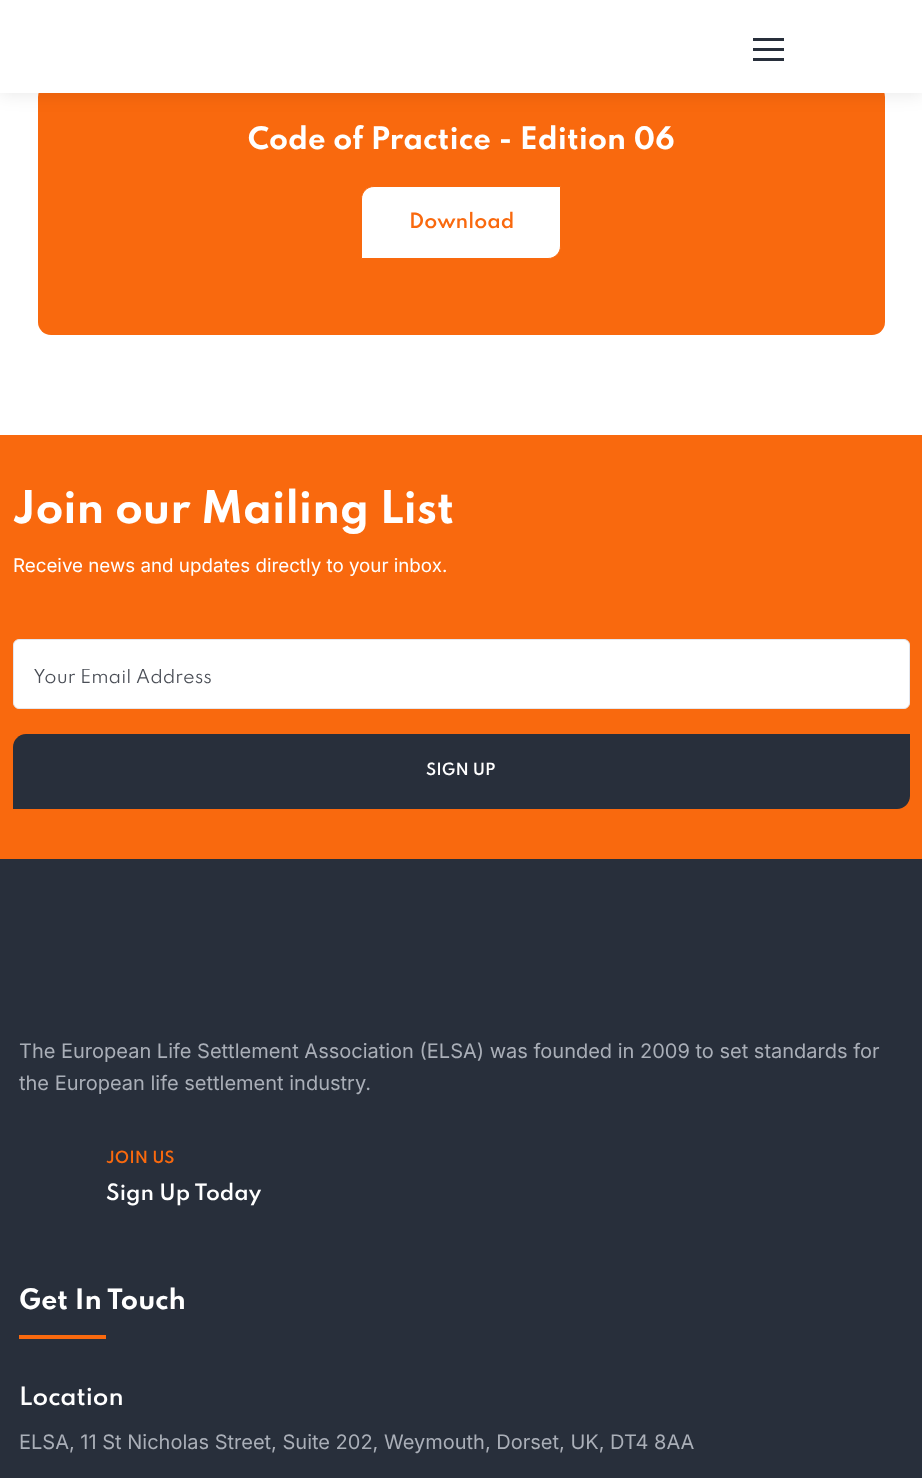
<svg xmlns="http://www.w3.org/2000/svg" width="922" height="1478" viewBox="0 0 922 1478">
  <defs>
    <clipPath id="clip1"><path d="M33 669h857v21H33z"/></clipPath>
  </defs>
  <rect width="100%" height="100%" fill="#fff"/>
  <rect x="38" y="84" width="847" height="251" rx="13" fill="#f9690e"/>
  <path d="M0 0h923v93H0z" fill="#0000001a" filter="blur(9.5px)"/>
  <path d="M0 0h922v93H0z" fill="#fff"/>
  <path d="M753 38h31v3H753z" fill="#282f3b"/>
  <path d="M753 48h31v3H753z" fill="#282f3b"/>
  <path d="M753 58h31v3H753z" fill="#282f3b"/>
  <path d="M374 186.5H560.5V246C560.5 253 555 258.5 548 258.5H361.5V199C361.5 192 367 186.5 374 186.5Z" fill="#fff" stroke="#f9690e"/>
  <path d="M0 435h922v424H0z" fill="#f9690e"/>
  <rect x="13.5" y="639.5" width="896" height="69" rx="5.5" fill="#fff" stroke="#e4e7ee"/>
  <path d="M26 734H910V796C910 803 904 809 897 809H13V747C13 740 19 734 26 734Z" fill="#282f3b"/>
  <path d="M0 859h922v619H0z" fill="#282f3b"/>
  <path d="M19 1335h87v4H19z" fill="#f9690e"/>
  <text x="248" y="149" font-family="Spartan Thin" font-size="27.5" font-weight="bold" fill="#fff">Code of Practice - Edition 06</text>
  <text x="409" y="228" font-family="Spartan Thin" font-size="18.75" font-weight="600" fill="#f9690e">Download</text>
  <text x="13" y="523" font-family="Spartan Thin" font-size="40" font-weight="bold" fill="#fff">Join our Mailing List</text>
  <text x="13" y="572" font-family="Inter" font-size="18.75" fill="#fff">Receive news and updates directly to your inbox.</text>
  <g clip-path="url(#clip1)">
    <text x="33" y="683" font-family="Spartan Thin" font-size="17.5" fill="#4a4e56">Your Email Address</text>
  </g>
  <text x="426" y="775" font-family="Spartan Thin" font-size="15" font-weight="600" fill="#fff">SIGN UP</text>
  <g font-family="Inter" font-size="20" fill="#aaafb8">
    <text x="19" y="1058">The European Life Settlement Association (ELSA) was founded in 2009 to set standards for</text>
    <text x="19" y="1090">the European life settlement industry.</text>
  </g>
  <text x="106" y="1163" font-family="Spartan Thin" font-size="15" font-weight="600" fill="#f9690e">JOIN US</text>
  <text x="106" y="1200" font-family="Spartan Thin" font-size="20" font-weight="600" fill="#fff">Sign Up Today</text>
  <text x="19" y="1309" font-family="Spartan Thin" font-size="25" font-weight="bold" fill="#fff">Get In Touch</text>
  <text x="19" y="1405" font-family="Spartan Thin" font-size="22.5" font-weight="600" fill="#fff">Location</text>
  <text x="19" y="1449" font-family="Inter" font-size="20" fill="#aaafb8">ELSA, 11 St Nicholas Street, Suite 202, Weymouth, Dorset, UK, DT4 8AA</text>
</svg>
